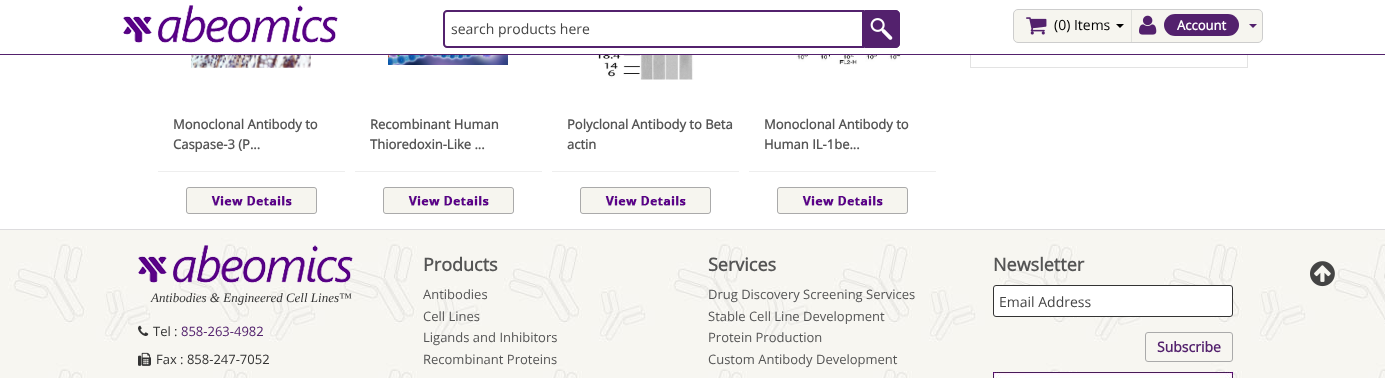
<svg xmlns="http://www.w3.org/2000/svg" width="1385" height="378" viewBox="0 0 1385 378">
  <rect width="100%" height="100%" fill="#fff"/>
  <path d="M0 54h1385v1H0z" fill="#53216d"/>
  <image x="123" y="5" width="215" height="38" href="img/1.png"/>
  <path d="M447 11H863V47H447C445.5 47 444 45.5 444 44V14C444 12.5 445.5 11 447 11Z" fill="none" stroke="#53216d" stroke-width="2"/>
  <path d="M864.5 10.5H896C898 10.5 899.5 12 899.5 14V44C899.5 46 898 47.5 896 47.5H864.5Z" fill="#53216d" stroke="#53216d"/>
  <image x="870" y="18" width="23" height="22" href="img/2.png"/>
  <rect x="1013.5" y="9.5" width="249" height="33" rx="4.5" fill="#f6f5ef" stroke="#cdcdcd"/>
  <path d="M1131 10h1v32H1131z" fill="#e0e1dc"/>
  <image x="1026" y="17" width="21" height="18" href="img/3.png"/>
  <path d="M1116 24H1124L1120 28Z" fill="#000"/>
  <image x="1139" y="15" width="18" height="20" href="img/4.png"/>
  <rect x="1164" y="14" width="75" height="22" rx="11" fill="#53216d"/>
  <path d="M1249 24H1257L1253 28Z" fill="#53216d"/>
  <path d="M1247 55h1v13H1247z" fill="#e3e3e3"/>
  <path d="M970 67h278v1H970z" fill="#e3e3e3"/>
  <path d="M970 55h1v13H970z" fill="#e3e3e3"/>
  <image x="191" y="55" width="120" height="13" href="img/5.png"/>
  <path d="M158 171h187v1H158z" fill="#eee"/>
  <image x="186" y="187" width="131" height="27" href="img/6.png"/>
  <image x="388" y="55" width="120" height="10" href="img/7.png"/>
  <path d="M355 171h187v1H355z" fill="#eee"/>
  <image x="383" y="187" width="131" height="27" href="img/6.png"/>
  <image x="597" y="55" width="101" height="25" href="img/8.png"/>
  <path d="M552 171h187v1H552z" fill="#eee"/>
  <image x="580" y="187" width="131" height="27" href="img/6.png"/>
  <image x="784" y="55" width="117" height="10" href="img/9.png"/>
  <path d="M749 171h187v1H749z" fill="#eee"/>
  <image x="777" y="187" width="131" height="27" href="img/6.png"/>
  <image x="0" y="230" width="1385" height="148" href="img/10.png"/>
  <path d="M0 229h1385v1H0z" fill="#dddcde"/>
  <image x="138" y="245" width="215" height="38" href="img/11.png"/>
  <image x="138" y="325" width="11" height="11" href="img/12.png"/>
  <image x="138" y="352" width="13" height="14" href="img/13.png"/>
  <rect x="993.5" y="285.5" width="239" height="31" rx="2.5" fill="#fff" stroke="#333"/>
  <rect x="1145.5" y="332.5" width="87" height="29" rx="2.5" fill="none" stroke="#aaa"/>
  <image x="993" y="372" width="240" height="6" href="img/14.png"/>
  <image x="1310" y="261" width="25" height="26" href="img/15.png"/>
  <text x="451" y="34" font-family="Open Sans" font-size="14" fill="#444">search products here</text>
  <text x="1054" y="30" font-family="Open Sans" font-size="14" fill="#000">(0) Items</text>
  <text x="1177" y="30" font-family="Open Sans" font-size="13" font-weight="bold" fill="#fff">Account</text>
  <g font-family="Open Sans" font-size="13" font-weight="bold" fill="#555">
    <text x="173" y="129">Monoclonal Antibody to</text>
    <text x="173" y="149">Caspase-3 (P...</text>
    <text x="370" y="129">Recombinant Human</text>
    <text x="370" y="149">Thioredoxin-Like ...</text>
    <text x="567" y="129">Polyclonal Antibody to Beta</text>
    <text x="567" y="149">actin</text>
    <text x="764" y="129">Monoclonal Antibody to</text>
    <text x="764" y="149">Human IL-1be...</text>
  </g>
  <text x="151" y="302" font-family="Liberation Serif" font-size="13" font-style="italic" fill="#333">Antibodies &amp; Engineered Cell Lines™</text>
  <text x="153" y="336" font-family="Open Sans" font-size="13" fill="#333">Tel :</text>
  <text x="181" y="336" font-family="Open Sans" font-size="13" fill="#53216d">858-263-4982</text>
  <text x="156" y="364" font-family="Open Sans" font-size="13" fill="#333">Fax : 858-247-7052</text>
  <text x="423" y="271" font-family="Open Sans" font-size="18" font-weight="bold" fill="#555">Products</text>
  <g font-family="Open Sans" font-size="13" fill="#555">
    <text x="423" y="299">Antibodies</text>
    <text x="423" y="321">Cell Lines</text>
    <text x="423" y="342">Ligands and Inhibitors</text>
    <text x="423" y="364">Recombinant Proteins</text>
  </g>
  <text x="708" y="271" font-family="Open Sans" font-size="18" font-weight="bold" fill="#555">Services</text>
  <g font-family="Open Sans" font-size="13" fill="#555">
    <text x="708" y="299">Drug Discovery Screening Services</text>
    <text x="708" y="321">Stable Cell Line Development</text>
    <text x="708" y="342">Protein Production</text>
    <text x="708" y="364">Custom Antibody Development</text>
  </g>
  <text x="993" y="271" font-family="Open Sans" font-size="18" font-weight="bold" fill="#555">Newsletter</text>
  <text x="999" y="307" font-family="Open Sans" font-size="14" fill="#444">Email Address</text>
  <text x="1157" y="352" font-family="Open Sans" font-size="14" font-weight="bold" fill="#53216d">Subscribe</text>
</svg>
